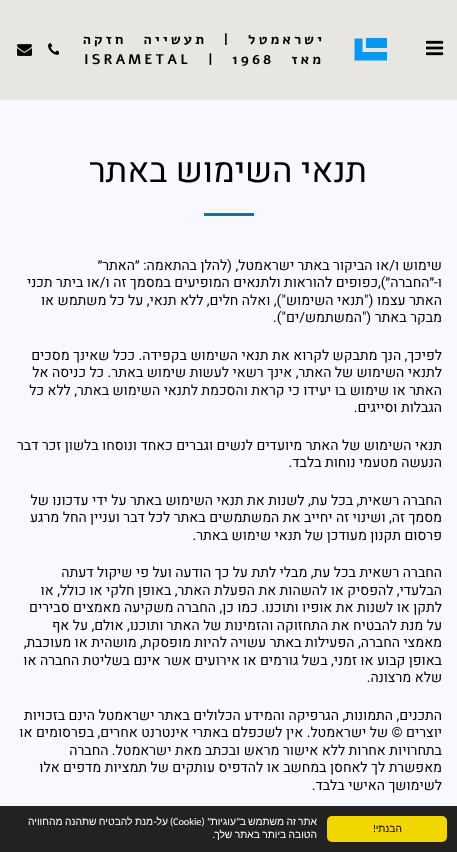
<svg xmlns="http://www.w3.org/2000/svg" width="457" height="852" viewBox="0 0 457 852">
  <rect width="100%" height="100%" fill="#f8f8ff"/>
  <path d="M0 0h457v100H0z" fill="#e7e6e1"/>
  <image x="426" y="40" width="18" height="16" href="img/1.png"/>
  <path d="M366 38h21v10H366z" fill="#0997ed"/>
  <path d="M362.5 38.5H354.5V60.5H387V52H362.5Z" fill="#0997ed"/>
  <image x="48" y="43" width="11" height="12" href="img/2.png"/>
  <image x="17" y="44" width="15" height="12" href="img/3.png"/>
  <path d="M204 213h50v3H204z" fill="#0677a1"/>
  <path d="M0 806h457v46H0z" fill="#222"/>
  <rect x="327" y="816" width="120" height="26" rx="5" fill="#f1d600"/>
  <g font-family="Alef" font-size="14" font-weight="bold" letter-spacing="3" direction="rtl" fill="#000">
    <text x="325" y="44" word-spacing="10">ישראמטל |</text>
    <text x="207" y="44" word-spacing="10">תעשייה חזקה</text>
    <text x="324" y="64">מאז</text>
  </g>
  <g font-family="Alef" font-size="14" font-weight="bold" letter-spacing="3" fill="#000">
    <text x="232" y="64">1968</text>
    <text x="208" y="64">|</text>
    <text x="84" y="64">ISRAMETAL</text>
  </g>
  <text x="367" y="182" font-family="Heebo" font-size="34.25" direction="rtl" fill="#000">תנאי השימוש באתר</text>
  <g font-family="Heebo" font-size="14" direction="rtl" fill="#000">
    <text x="442" y="270">שימוש ו/או הביקור באתר ישראמטל, (להלן בהתאמה: ״האתר״</text>
    <text x="442" y="287">ו-״החברה״),כפופים להוראות ולתנאים המופיעים במסמך זה ו/או ביתר תכני</text>
    <text x="442" y="305">האתר עצמו ("תנאי השימוש"), ואלה חלים, ללא תנאי, על כל משתמש או</text>
    <text x="442" y="322">מבקר באתר ("המשתמש/ים").</text>
    <text x="442" y="360">לפיכך, הנך מתבקש לקרוא את תנאי השימוש בקפידה. ככל שאינך מסכים</text>
    <text x="442" y="377">לתנאי השימוש של האתר, אינך רשאי לעשות שימוש באתר. כל כניסה אל</text>
    <text x="442" y="395">האתר או שימוש בו יעידו כי קראת והסכמת לתנאי השימוש באתר, ללא כל</text>
    <text x="442" y="412">הגבלות וסייגים.</text>
    <text x="442" y="450">תנאי השימוש של האתר מיועדים לנשים וגברים כאחד ונוסחו בלשון זכר דבר</text>
    <text x="442" y="467">הנעשה מטעמי נוחות בלבד.</text>
    <text x="442" y="505">החברה רשאית, בכל עת, לשנות את תנאי השימוש באתר על ידי עדכונו של</text>
    <text x="442" y="522">מסמך זה, ושינוי זה יחייב את המשתמשים באתר לכל דבר ועניין החל מרגע</text>
    <text x="442" y="540">פרסום תקנון מעודכן של תנאי שימוש באתר.</text>
    <text x="442" y="577">החברה רשאית בכל עת, מבלי לתת על כך הודעה ועל פי שיקול דעתה</text>
    <text x="442" y="595">הבלעדי, להפסיק או להשהות את הפעלת האתר, באופן חלקי או כולל, או</text>
    <text x="442" y="612">לתקן או לשנות את אופיו ותוכנו. כמו כן, החברה משקיעה מאמצים סבירים</text>
    <text x="442" y="630">על מנת להבטיח את התחזוקה והזמינות של האתר ותוכנו, אולם, על אף</text>
    <text x="442" y="647">מאמצי החברה, הפעילות באתר עשויה להיות מופסקת, מושהית או מעוכבת,</text>
    <text x="442" y="665">באופן קבוע או זמני, בשל גורמים או אירועים אשר אינם בשליטת החברה או</text>
    <text x="442" y="682">שלא מרצונה.</text>
    <text x="442" y="720">התכנים, התמונות, הגרפיקה והמידע הכלולים באתר ישראמטל הינם בזכויות</text>
    <text x="442" y="737">יוצרים © של ישראמטל. אין לשכפלם באתרי אינטרנט אחרים, בפרסומים או</text>
    <text x="442" y="755">בתחרויות אחרות ללא אישור מראש ובכתב מאת ישראמטל. החברה</text>
    <text x="442" y="772">מאפשרת לך לאחסן במחשב או להדפיס עותקים של תמציות מדפים אלו</text>
    <text x="442" y="790">לשימושך האישי בלבד.</text>
  </g>
  <text x="402" y="832" font-family="Liberation Sans" font-size="10.25" direction="rtl" fill="#000">הבנתי</text>
  <text x="376" y="832" font-family="Carlito" font-size="10.25" direction="rtl" fill="#000">!</text>
  <g font-family="Liberation Sans" font-size="10.25" direction="rtl" fill="#fff">
    <text x="317" y="825">אתר</text>
    <text x="296" y="825">זה</text>
    <text x="284" y="825">משתמש</text>
    <text x="246" y="825">ב</text>
  </g>
  <g font-family="Carlito" font-size="10.25" direction="rtl" fill="#fff">
    <text x="240" y="825">"</text>
    <text x="211" y="825">" (</text>
  </g>
  <text x="236" y="825" font-family="Liberation Sans" font-size="10.25" direction="rtl" fill="#fff">עוגיות</text>
  <text x="173" y="825" font-family="Carlito" font-size="10.25" fill="#fff">Cookie</text>
  <text x="173" y="825" font-family="Carlito" font-size="10.25" direction="rtl" fill="#fff">)</text>
  <text x="153" y="825" word-spacing="-0.5" font-family="Liberation Sans" font-size="10.25" direction="rtl" fill="#fff">מנת להבטיח שתהנה מהחוויה</text>
  <text x="157" y="825" font-family="Carlito" font-size="10.25" direction="rtl" fill="#fff">-</text>
  <g font-family="Liberation Sans" font-size="10.25" direction="rtl" fill="#fff">
    <text x="168" y="825">על</text>
    <text x="317" y="838" word-spacing="-0.5">הטובה ביותר באתר שלך</text>
  </g>
  <text x="215" y="838" font-family="Carlito" font-size="10.25" direction="rtl" fill="#fff">.</text>
</svg>
